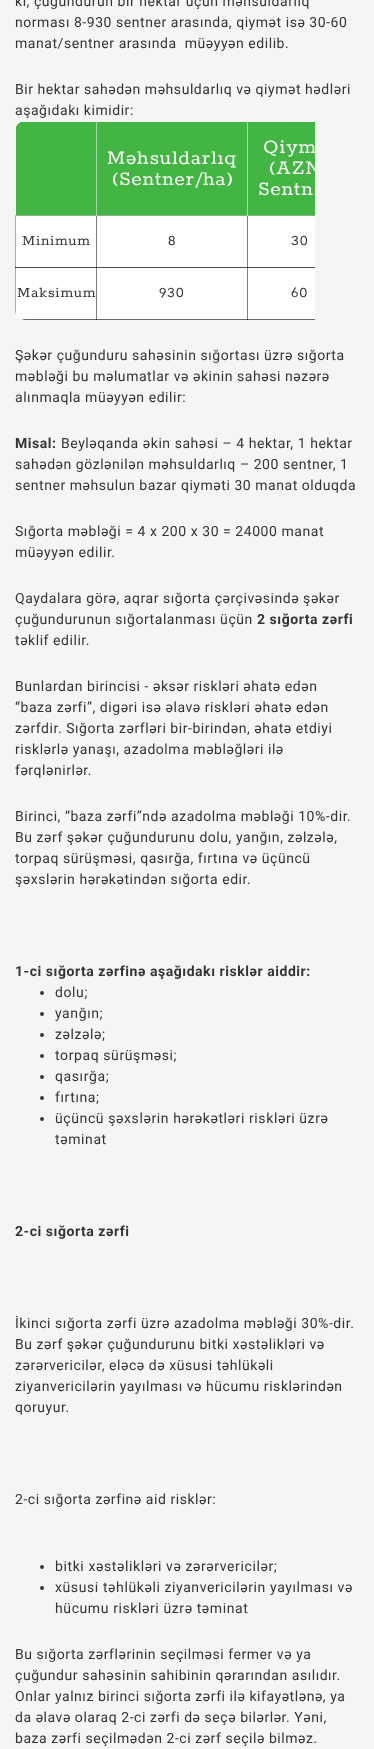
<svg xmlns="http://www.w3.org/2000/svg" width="374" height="1749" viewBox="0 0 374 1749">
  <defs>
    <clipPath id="clip1"><rect x="15" y="121" width="337" height="199" rx="10"/></clipPath>
    <clipPath id="clip2"><path d="M15 121h300v199H15z"/></clipPath>
  </defs>
  <rect width="100%" height="100%" fill="#f5f5f5"/>
  <path d="M96 121h219v1H96z" fill="#f8f8f8"/>
  <path d="M15 215h1v1H15z" fill="#aeaeae"/>
  <path d="M15 267h1v1H15z" fill="#676767"/>
  <g clip-path="url(#clip1)">
    <path d="M16 122h80v93H16z" fill="#43b543"/>
  </g>
  <path d="M96 122h1v94H96z" fill="#7bcb7b"/>
  <path d="M16 215h81v1H16z" fill="#568e56"/>
  <path d="M96 215h1v1H96z" fill="#909a90"/>
  <g clip-path="url(#clip1)">
    <path d="M15 121h82v1H15z" fill="#ffffff4d"/>
  </g>
  <path d="M96 121h1v95H96z" fill="#ffffff4d"/>
  <path d="M16 216h299v51H16z" fill="#fff"/>
  <path d="M96 216h1v52H96z" fill="#7d7d7d"/>
  <path d="M16 267h81v1H16z" fill="#6b6b6b"/>
  <path d="M247 216h1v52H247z" fill="#7d7d7d"/>
  <path d="M96 267h219v1H96z" fill="#4b4b4b"/>
  <path d="M96 267h1v1H96z" fill="#0d0d0d"/>
  <g clip-path="url(#clip1)">
    <path d="M16 268h299v52H16z" fill="#fff"/>
    <path d="M15 319h81v1H15z" fill="#999"/>
  </g>
  <path d="M247 268h1v52H247z" fill="#7d7d7d"/>
  <path d="M96 268h1v52H96z" fill="#7d7d7d"/>
  <path d="M96 319h219v1H96z" fill="#6b6b6b"/>
  <path d="M96 319h1v1H96z" fill="#353535"/>
  <g clip-path="url(#clip1)">
    <path d="M15 319h82v1H15z" fill="#0000004d"/>
    <path d="M15 267h1v53H15z" fill="#0000004d"/>
  </g>
  <path d="M15 267h82v1H15z" fill="#0000004d"/>
  <path d="M15 215h1v53H15z" fill="#0000004d"/>
  <path d="M15 215h82v1H15z" fill="#ffffff4d"/>
  <g clip-path="url(#clip1)">
    <path d="M15 121h1v95H15z" fill="#ffffff4d"/>
  </g>
  <path d="M97 122h150v93H97z" fill="#43b543"/>
  <path d="M97 215h150v1H97z" fill="#89b089"/>
  <path d="M248 122h67v93H248z" fill="#43b543"/>
  <path d="M247 122h1v94H247z" fill="#a3dba3"/>
  <path d="M247 121h1v1H247z" fill="#fdfdfd"/>
  <path d="M247 215h68v1H247z" fill="#89b089"/>
  <path d="M247 215h1v1H247z" fill="#c8cdc8"/>
  <path d="M247 267h1v1H247z" fill="#090909"/>
  <path d="M247 319h1v1H247z" fill="#252525"/>
  <circle cx="42" cy="993" r="2" fill="#383838"/>
  <circle cx="42" cy="1014" r="2" fill="#383838"/>
  <circle cx="42" cy="1035" r="2" fill="#383838"/>
  <circle cx="42" cy="1056" r="2" fill="#383838"/>
  <circle cx="42" cy="1077" r="2" fill="#383838"/>
  <circle cx="42" cy="1098" r="2" fill="#383838"/>
  <circle cx="42" cy="1119" r="2" fill="#383838"/>
  <circle cx="42" cy="1567" r="2" fill="#383838"/>
  <circle cx="42" cy="1588" r="2" fill="#383838"/>
  <g font-family="Roboto" font-size="14" letter-spacing="0.55" fill="#353535">
    <text x="15" y="6">ki, çuğundurun bir hektar üçün məhsuldarlıq</text>
    <text x="15" y="27">norması 8-930 sentner arasında, qiymət isə 30-60</text>
    <text x="15" y="48" xml:space="preserve">manat/sentner arasında  müəyyən edilib.</text>
    <text x="15" y="94">Bir hektar sahədən məhsuldarlıq və qiymət hədləri</text>
    <text x="15" y="115">aşağıdakı kimidir:</text>
  </g>
  <g font-family="Rokkitt" font-size="22" letter-spacing="0.9" fill="#fff">
    <text x="107" y="164">Məhsuldarlıq</text>
    <text x="112" y="185">(Sentner/ha)</text>
    <text x="263" y="153">Qiym</text>
  </g>
  <g clip-path="url(#clip2)">
    <text x="269" y="174" font-family="Rokkitt" font-size="22" letter-spacing="0.9" fill="#fff">(AZN</text>
  </g>
  <text x="258" y="195" font-family="Rokkitt" font-size="22" letter-spacing="0.9" fill="#fff">Sentn</text>
  <g font-family="Rokkitt" font-size="16" letter-spacing="0.75" fill="#353535">
    <text x="22" y="245">Minimum</text>
    <text x="168" y="245">8</text>
    <text x="291" y="245">30</text>
    <text x="17" y="297">Maksimum</text>
    <text x="159" y="297">930</text>
    <text x="291" y="297">60</text>
  </g>
  <g font-family="Roboto" font-size="14" letter-spacing="0.55" fill="#353535">
    <text x="15" y="360">Şəkər çuğunduru sahəsinin sığortası üzrə sığorta</text>
    <text x="15" y="381">məbləği bu məlumatlar və əkinin sahəsi nəzərə</text>
    <text x="15" y="402">alınmaqla müəyyən edilir:</text>
  </g>
  <text x="15" y="448" font-family="Roboto" font-size="14" font-weight="bold" letter-spacing="0.55" fill="#353535">Misal:</text>
  <g font-family="Roboto" font-size="14" letter-spacing="0.55" fill="#353535">
    <text x="61" y="448">Beyləqanda əkin sahəsi – 4 hektar, 1 hektar</text>
    <text x="15" y="469">sahədən gözlənilən məhsuldarlıq – 200 sentner, 1</text>
    <text x="15" y="490">sentner məhsulun bazar qiyməti 30 manat olduqda</text>
    <text x="15" y="536">Sığorta məbləği = 4 x 200 x 30 = 24000 manat</text>
    <text x="15" y="557">müəyyən edilir.</text>
    <text x="15" y="603">Qaydalara görə, aqrar sığorta çərçivəsində şəkər</text>
    <text x="15" y="624">çuğundurunun sığortalanması üçün</text>
  </g>
  <text x="257" y="624" font-family="Roboto" font-size="14" font-weight="bold" letter-spacing="0.55" fill="#353535">2 sığorta zərfi</text>
  <g font-family="Roboto" font-size="14" letter-spacing="0.55" fill="#353535">
    <text x="15" y="645">təklif edilir.</text>
    <text x="15" y="691">Bunlardan birincisi - əksər riskləri əhatə edən</text>
    <text x="15" y="712">“baza zərfi”, digəri isə əlavə riskləri əhatə edən</text>
    <text x="15" y="733">zərfdir. Sığorta zərfləri bir-birindən, əhatə etdiyi</text>
    <text x="15" y="754">risklərlə yanaşı, azadolma məbləğləri ilə</text>
    <text x="15" y="775">fərqlənirlər.</text>
    <text x="15" y="821">Birinci, “baza zərfi”ndə azadolma məbləği 10%-dir.</text>
    <text x="15" y="842">Bu zərf şəkər çuğundurunu dolu, yanğın, zəlzələ,</text>
    <text x="15" y="863">torpaq sürüşməsi, qasırğa, fırtına və üçüncü</text>
    <text x="15" y="884">şəxslərin hərəkətindən sığorta edir.</text>
  </g>
  <text x="15" y="976" font-family="Roboto" font-size="14" font-weight="bold" letter-spacing="0.55" fill="#353535">1-ci sığorta zərfinə aşağıdakı risklər aiddir:</text>
  <g font-family="Roboto" font-size="14" letter-spacing="0.6" fill="#353535">
    <text x="55" y="997">dolu;</text>
    <text x="55" y="1018">yanğın;</text>
    <text x="55" y="1039">zəlzələ;</text>
    <text x="55" y="1060">torpaq sürüşməsi;</text>
    <text x="55" y="1081">qasırğa;</text>
    <text x="55" y="1102">fırtına;</text>
    <text x="55" y="1123">üçüncü şəxslərin hərəkətləri riskləri üzrə</text>
    <text x="55" y="1144">təminat</text>
  </g>
  <text x="15" y="1236" font-family="Roboto" font-size="14" font-weight="bold" letter-spacing="0.55" fill="#353535">2-ci sığorta zərfi</text>
  <g font-family="Roboto" font-size="14" letter-spacing="0.55" fill="#353535">
    <text x="15" y="1328">İkinci sığorta zərfi üzrə azadolma məbləği 30%-dir.</text>
    <text x="15" y="1349">Bu zərf şəkər çuğundurunu bitki xəstəlikləri və</text>
    <text x="15" y="1370">zərərvericilər, eləcə də xüsusi təhlükəli</text>
    <text x="15" y="1391">ziyanvericilərin yayılması və hücumu risklərindən</text>
    <text x="15" y="1412">qoruyur.</text>
    <text x="15" y="1504">2-ci sığorta zərfinə aid risklər:</text>
  </g>
  <g font-family="Roboto" font-size="14" letter-spacing="0.6" fill="#353535">
    <text x="55" y="1571">bitki xəstəlikləri və zərərvericilər;</text>
    <text x="55" y="1592">xüsusi təhlükəli ziyanvericilərin yayılması və</text>
    <text x="55" y="1613">hücumu riskləri üzrə təminat</text>
  </g>
  <g font-family="Roboto" font-size="14" letter-spacing="0.55" fill="#353535">
    <text x="15" y="1659">Bu sığorta zərflərinin seçilməsi fermer və ya</text>
    <text x="15" y="1680">çuğundur sahəsinin sahibinin qərarından asılıdır.</text>
    <text x="15" y="1701">Onlar yalnız birinci sığorta zərfi ilə kifayətlənə, ya</text>
    <text x="15" y="1722">da əlavə olaraq 2-ci zərfi də seçə bilərlər. Yəni,</text>
    <text x="15" y="1743">baza zərfi seçilmədən 2-ci zərf seçilə bilməz.</text>
  </g>
</svg>
